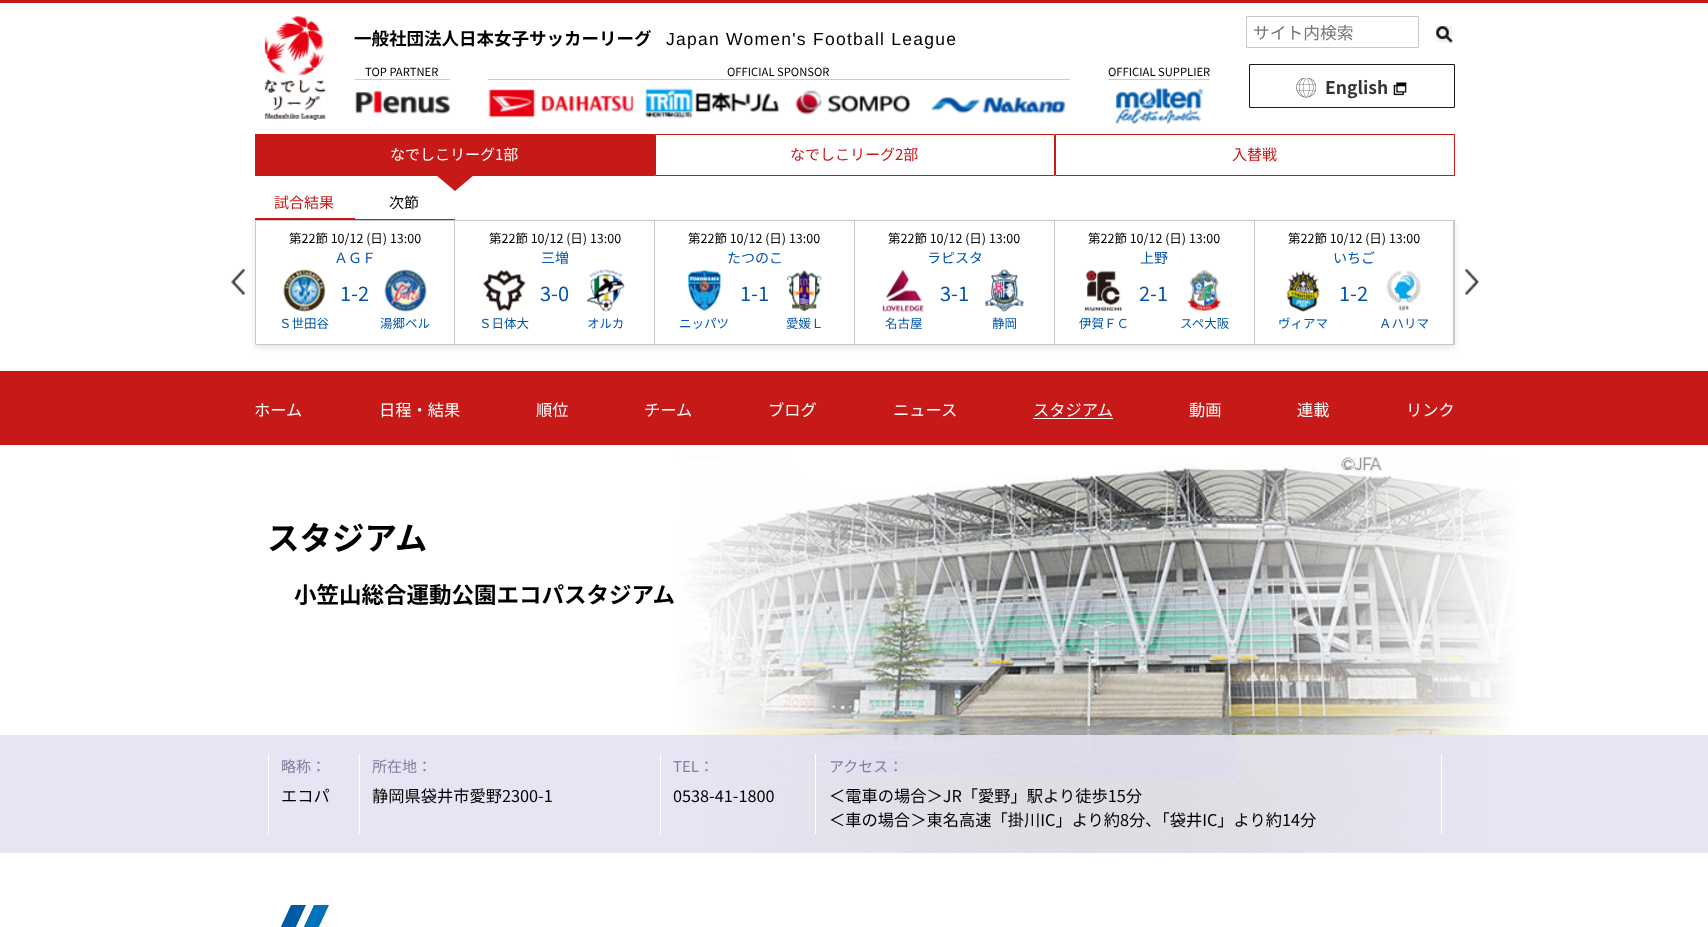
<svg xmlns="http://www.w3.org/2000/svg" width="1708" height="927" viewBox="0 0 1708 927">
  <defs>
    <clipPath id="clip1"><path d="M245 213H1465V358H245ZM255 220H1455V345H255Z" clip-rule="evenodd"/></clipPath>
    <linearGradient id="g1" gradientUnits="userSpaceOnUse" x1="656" y1="649" x2="1031" y2="649"><stop offset="0.05" stop-color="#fff"/><stop offset="1" stop-color="#fff" stop-opacity="0"/></linearGradient>
    <linearGradient id="g2" gradientUnits="userSpaceOnUse" x1="1555" y1="649" x2="1180" y2="649"><stop offset="0.1" stop-color="#fff"/><stop offset="1" stop-color="#fff" stop-opacity="0"/></linearGradient>
  </defs>
  <rect width="100%" height="100%" fill="#fff"/>
  <path d="M0 0h1708v3H0z" fill="#c71918"/>
  <path d="M1246.5 16.5h172v31H1246.5z" fill="none" stroke="#c9c9c9"/>
  <image x="1436" y="26" width="17" height="17" href="img/1.png"/>
  <image x="264" y="16" width="62" height="104" href="img/2.png"/>
  <path d="M355 79h95v1H355z" fill="#ccc"/>
  <image x="355" y="90" width="96" height="25" href="img/3.png"/>
  <path d="M488 79h582v1H488z" fill="#ccc"/>
  <image x="488" y="89" width="146" height="29" href="img/4.png"/>
  <image x="645" y="88" width="134" height="31" href="img/5.png"/>
  <image x="795" y="89" width="116" height="26" href="img/6.png"/>
  <image x="931" y="97" width="135" height="17" href="img/7.png"/>
  <path d="M1108 79h102v1H1108z" fill="#ccc"/>
  <image x="1115" y="88" width="89" height="37" href="img/8.png"/>
  <path d="M1249.5 64.5h205v43H1249.5z" fill="none" stroke="#1a1a1a"/>
  <image x="1296" y="78" width="20" height="20" href="img/9.png"/>
  <image x="1393" y="82" width="14" height="14" href="img/10.png"/>
  <path d="M255 134h400v42H255z" fill="#c71918"/>
  <path d="M436 175H474L455 191Z" fill="#c71918"/>
  <path d="M655.5 134.5h399v41H655.5z" fill="none" stroke="#c71918"/>
  <path d="M1055.5 134.5h399v41H1055.5z" fill="none" stroke="#c71918"/>
  <path d="M255 218h100v2H255z" fill="#c71918"/>
  <path d="M355 219h100v1H355z" fill="#c71918"/>
  <g clip-path="url(#clip1)">
    <path d="M255 223h1200v125H255z" fill="#0000001a" filter="blur(3px)"/>
  </g>
  <path d="M255.5 220.5h1199v124H255.5z" fill="none" stroke="#c9c9c9"/>
  <path d="M258 221H454V344H258H455V221Z" fill="#c9c9c9"/>
  <image x="283" y="269" width="43" height="43" href="img/11.png"/>
  <image x="384" y="269" width="43" height="43" href="img/12.png"/>
  <path d="M456 221H654V344H456H655V221Z" fill="#c9c9c9"/>
  <image x="483" y="270" width="43" height="42" href="img/13.png"/>
  <image x="587" y="269" width="38" height="43" href="img/14.png"/>
  <path d="M656 221H854V344H656H855V221Z" fill="#c9c9c9"/>
  <image x="688" y="270" width="34" height="42" href="img/15.png"/>
  <image x="787" y="270" width="36" height="42" href="img/16.png"/>
  <path d="M856 221H1054V344H856H1055V221Z" fill="#c9c9c9"/>
  <image x="882" y="269" width="42" height="43" href="img/17.png"/>
  <image x="985" y="269" width="39" height="43" href="img/18.png"/>
  <path d="M1056 221H1254V344H1056H1255V221Z" fill="#c9c9c9"/>
  <image x="1084" y="269" width="39" height="43" href="img/19.png"/>
  <image x="1186" y="269" width="36" height="43" href="img/20.png"/>
  <path d="M1256 221H1452V344H1256H1454V221Z" fill="#c9c9c9"/>
  <path d="M1452 221h1v123H1452z" fill="#fff"/>
  <image x="1287" y="270" width="33" height="42" href="img/21.png"/>
  <image x="1386" y="270" width="36" height="42" href="img/22.png"/>
  <image x="231" y="268" width="14" height="27" href="img/23.png"/>
  <image x="1465" y="268" width="14" height="27" href="img/24.png"/>
  <path d="M0 371h1708v74H0z" fill="#c71918"/>
  <path d="M1033 418h80v1H1033z" fill="#fff"/>
  <image x="677" y="455" width="839" height="398" href="img/25.png"/>
  <path d="M677 461h346v392H677z" fill="url(#g1)"/>
  <path d="M1187 455h329v398H1187z" fill="url(#g2)"/>
  <path d="M0 735h1708v118H0z" fill="#e3e2f3e6"/>
  <path d="M268 754h1v80H268z" fill="#fff"/>
  <path d="M359 754h1v80H359z" fill="#fff"/>
  <path d="M660 754h1v80H660z" fill="#fff"/>
  <path d="M1441 754h1v80H1441z" fill="#fff"/>
  <path d="M815 754h1v80H815z" fill="#fff"/>
  <path d="M291 905H306L282 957H267Z" fill="#005aa6"/>
  <path d="M314 905H329L305 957H290Z" fill="#0071bb"/>
  <text x="1253" y="39" font-family="Noto Sans JP" font-size="16.75" fill="#757575">サイト内検索</text>
  <text x="354" y="45" font-family="Noto Sans JP" font-size="17.5" font-weight="bold" fill="#000">一般社団法人日本女子サッカーリーグ</text>
  <text x="666" y="45" font-family="Liberation Sans" font-size="17.5" letter-spacing="1.25" fill="#000">Japan Women's Football League</text>
  <g font-family="Noto Sans JP" font-size="11.25" fill="#000">
    <text x="365" y="76">TOP PARTNER</text>
    <text x="727" y="76">OFFICIAL SPONSOR</text>
    <text x="1108" y="76">OFFICIAL SUPPLIER</text>
  </g>
  <text x="1325" y="94" font-family="Noto Sans JP" font-size="17.5" font-weight="bold" fill="#333">English</text>
  <text x="390" y="160" font-family="Noto Sans JP" font-size="15" fill="#fff">なでしこリーグ1部</text>
  <g font-family="Noto Sans JP" font-size="15" fill="#c71918">
    <text x="790" y="160">なでしこリーグ2部</text>
    <text x="1232" y="160">入替戦</text>
    <text x="274" y="208">試合結果</text>
  </g>
  <text x="389" y="208" font-family="Noto Sans JP" font-size="15" fill="#000">次節</text>
  <text x="289" y="243" font-family="Noto Sans JP" font-size="12.5" fill="#000">第22節 10/12 (日) 13:00</text>
  <text x="334" y="263" font-family="Noto Sans JP" font-size="14" fill="#0056ad">ＡＧＦ</text>
  <text x="340" y="301" font-family="Noto Sans JP" font-size="20" fill="#0056ad">1-2</text>
  <g font-family="Noto Sans JP" font-size="12.5" fill="#0056ad">
    <text x="279" y="328">Ｓ世田谷</text>
    <text x="380" y="328">湯郷ベル</text>
  </g>
  <text x="489" y="243" font-family="Noto Sans JP" font-size="12.5" fill="#000">第22節 10/12 (日) 13:00</text>
  <text x="541" y="263" font-family="Noto Sans JP" font-size="14" fill="#0056ad">三増</text>
  <text x="540" y="301" font-family="Noto Sans JP" font-size="20" fill="#0056ad">3-0</text>
  <g font-family="Noto Sans JP" font-size="12.5" fill="#0056ad">
    <text x="479" y="328">Ｓ日体大</text>
    <text x="587" y="328">オルカ</text>
  </g>
  <text x="688" y="243" font-family="Noto Sans JP" font-size="12.5" fill="#000">第22節 10/12 (日) 13:00</text>
  <text x="727" y="263" font-family="Noto Sans JP" font-size="14" fill="#0056ad">たつのこ</text>
  <text x="740" y="301" font-family="Noto Sans JP" font-size="20" fill="#0056ad">1-1</text>
  <g font-family="Noto Sans JP" font-size="12.5" fill="#0056ad">
    <text x="679" y="328">ニッパツ</text>
    <text x="786" y="328">愛媛Ｌ</text>
  </g>
  <text x="888" y="243" font-family="Noto Sans JP" font-size="12.5" fill="#000">第22節 10/12 (日) 13:00</text>
  <text x="927" y="263" font-family="Noto Sans JP" font-size="14" fill="#0056ad">ラピスタ</text>
  <text x="940" y="301" font-family="Noto Sans JP" font-size="20" fill="#0056ad">3-1</text>
  <g font-family="Noto Sans JP" font-size="12.5" fill="#0056ad">
    <text x="885" y="328">名古屋</text>
    <text x="992" y="328">静岡</text>
  </g>
  <text x="1088" y="243" font-family="Noto Sans JP" font-size="12.5" fill="#000">第22節 10/12 (日) 13:00</text>
  <text x="1140" y="263" font-family="Noto Sans JP" font-size="14" fill="#0056ad">上野</text>
  <text x="1139" y="301" font-family="Noto Sans JP" font-size="20" fill="#0056ad">2-1</text>
  <g font-family="Noto Sans JP" font-size="12.5" fill="#0056ad">
    <text x="1079" y="328">伊賀ＦＣ</text>
    <text x="1180" y="328">スペ大阪</text>
  </g>
  <text x="1288" y="243" font-family="Noto Sans JP" font-size="12.5" fill="#000">第22節 10/12 (日) 13:00</text>
  <text x="1333" y="263" font-family="Noto Sans JP" font-size="14" fill="#0056ad">いちご</text>
  <text x="1339" y="301" font-family="Noto Sans JP" font-size="20" fill="#0056ad">1-2</text>
  <g font-family="Noto Sans JP" font-size="12.5" fill="#0056ad">
    <text x="1278" y="328">ヴィアマ</text>
    <text x="1379" y="328">Ａハリマ</text>
  </g>
  <g font-family="Noto Sans JP" font-size="16.25" fill="#fff">
    <text x="254" y="416">ホーム</text>
    <text x="379" y="416">日程・結果</text>
    <text x="536" y="416">順位</text>
    <text x="644" y="416">チーム</text>
    <text x="768" y="416">ブログ</text>
    <text x="893" y="416">ニュース</text>
    <text x="1033" y="416">スタジアム</text>
    <text x="1189" y="416">動画</text>
    <text x="1297" y="416">連載</text>
    <text x="1406" y="416">リンク</text>
  </g>
  <text x="267" y="550" font-family="Noto Sans JP" font-size="32.5" font-weight="bold" fill="#000">スタジアム</text>
  <text x="294" y="603" font-family="Noto Sans JP" font-size="22.5" font-weight="bold" fill="#000">小笠山総合運動公園エコパスタジアム</text>
  <text x="281" y="772" font-family="Noto Sans JP" font-size="15" fill="#807e9a">略称：</text>
  <text x="281" y="802" font-family="Noto Sans JP" font-size="16.25" fill="#000">エコパ</text>
  <text x="372" y="772" font-family="Noto Sans JP" font-size="15" fill="#807e9a">所在地：</text>
  <text x="372" y="802" font-family="Noto Sans JP" font-size="16.25" fill="#000">静岡県袋井市愛野2300-1</text>
  <text x="673" y="772" font-family="Noto Sans JP" font-size="15" fill="#807e9a">TEL：</text>
  <text x="673" y="802" font-family="Noto Sans JP" font-size="16.25" fill="#000">0538-41-1800</text>
  <text x="829" y="772" font-family="Noto Sans JP" font-size="15" fill="#807e9a">アクセス：</text>
  <g font-family="Noto Sans JP" font-size="16.25" fill="#000">
    <text x="829" y="802">＜電車の場合＞JR「愛野」駅より徒歩15分</text>
    <text x="829" y="826">＜車の場合＞東名高速「掛川IC」より約8分、「袋井IC」より約14分</text>
  </g>
</svg>
